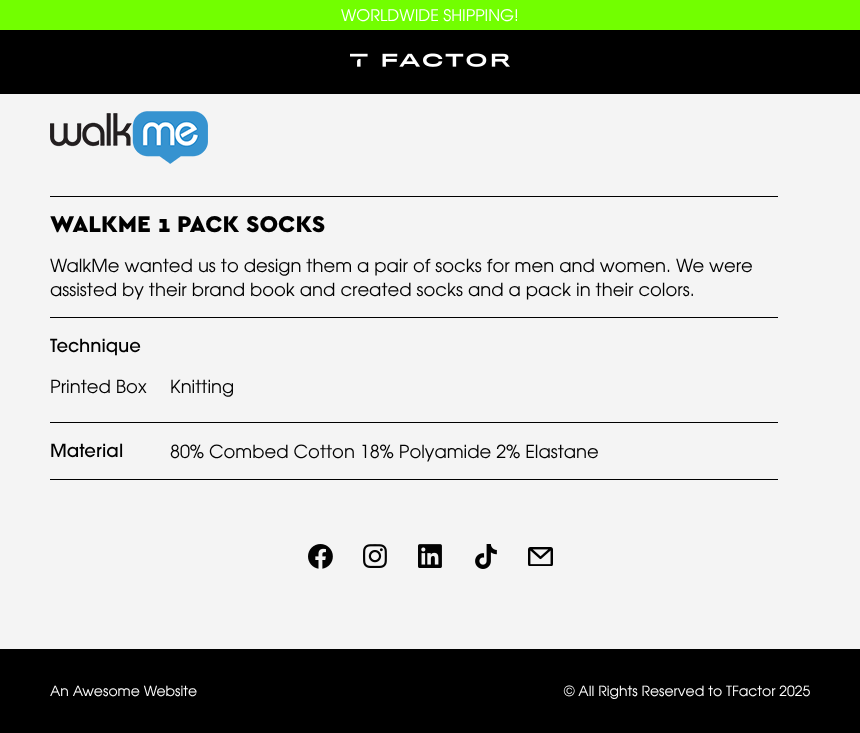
<svg xmlns="http://www.w3.org/2000/svg" width="860" height="733" viewBox="0 0 860 733">
  <rect width="100%" height="100%" fill="#f4f4f4"/>
  <path d="M0 30h860v64H0z" fill="#000"/>
  <path d="M0 0h860v30H0z" fill="#72ff00"/>
  <image x="350" y="53" width="160" height="14" href="img/1.png"/>
  <image x="50" y="111" width="158" height="53" href="img/2.png"/>
  <path d="M50 196h728v1H50z" fill="#000"/>
  <path d="M50 317h728v1H50z" fill="#000"/>
  <path d="M50 422h728v1H50z" fill="#000"/>
  <path d="M50 479h728v1H50z" fill="#000"/>
  <image x="308" y="544" width="25" height="25" href="img/3.png"/>
  <image x="363" y="544" width="24" height="24" href="img/4.png"/>
  <image x="418" y="544" width="24" height="24" href="img/5.png"/>
  <image x="475" y="544" width="22" height="25" href="img/6.png"/>
  <image x="528" y="547" width="25" height="19" href="img/7.png"/>
  <path d="M0 649h860v84H0z" fill="#000"/>
  <text x="341" y="21" font-family="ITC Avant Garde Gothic" font-size="16" fill="#fff">WORLDWIDE SHIPPING!</text>
  <text x="50" y="232" font-family="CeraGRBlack" font-size="24" font-weight="900" fill="#000">WALKME 1 PACK SOCKS</text>
  <g font-family="ITC Avant Garde Gothic" font-size="18" fill="#000">
    <text x="50" y="272">WalkMe wanted us to design them a pair of socks for men and women. We were</text>
    <text x="50" y="296">assisted by their brand book and created socks and a pack in their colors.</text>
  </g>
  <text x="50" y="352" font-family="'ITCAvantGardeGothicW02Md'" font-size="18" font-weight="500" fill="#000">Technique</text>
  <g font-family="ITC Avant Garde Gothic" font-size="18" fill="#000">
    <text x="50" y="393">Printed Box</text>
    <text x="170" y="393">Knitting</text>
  </g>
  <text x="50" y="457" font-family="'ITCAvantGardeGothicW02Md'" font-size="18" font-weight="500" fill="#000">Material</text>
  <text x="170" y="458" font-family="ITC Avant Garde Gothic" font-size="18" fill="#000">80% Combed Cotton 18% Polyamide 2% Elastane</text>
  <g font-family="ITC Avant Garde Gothic" font-size="14" fill="#fff">
    <text x="50" y="696">An Awesome Website</text>
    <text x="564" y="696">© All Rights Reserved to TFactor 2025</text>
  </g>
</svg>
